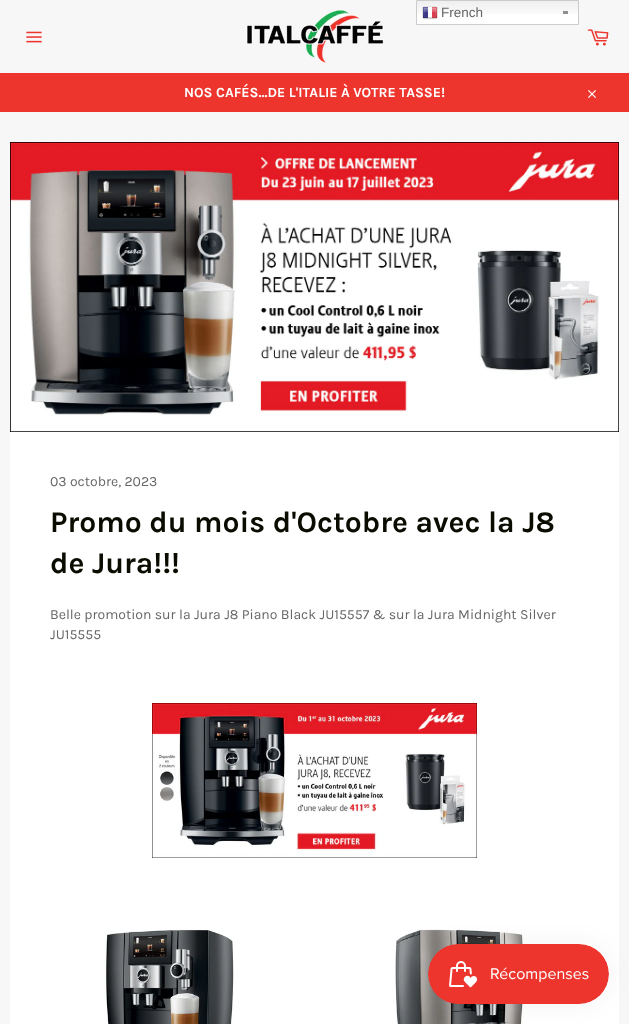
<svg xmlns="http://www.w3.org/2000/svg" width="629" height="1024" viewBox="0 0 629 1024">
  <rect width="100%" height="100%" fill="#f7f7f7"/>
  <path d="M417 14h161v10H417z" fill="#fff"/>
  <image x="417" y="1" width="161" height="13" href="img/1.png"/>
  <path d="M563 11h5v3H563z" fill="#8f8f8f"/>
  <path d="M416.5 0.5h162v24H416.5z" fill="none" stroke="#ccc"/>
  <image x="422" y="6" width="16" height="14" href="img/2.png"/>
  <image x="26" y="31" width="16" height="12" href="img/3.png"/>
  <image x="246" y="10" width="138" height="53" href="img/4.png"/>
  <image x="587" y="29" width="22" height="17" href="img/5.png"/>
  <path d="M0 73h629v39H0z" fill="#ed342d"/>
  <image x="588" y="90" width="8" height="8" href="img/6.png"/>
  <path d="M10 432h609v592H10z" fill="#fff"/>
  <image x="10" y="142" width="609" height="290" href="img/7.png"/>
  <image x="152" y="703" width="325" height="155" href="img/8.png"/>
  <image x="104" y="929" width="130" height="95" href="img/9.png"/>
  <image x="395" y="929" width="141" height="95" href="img/10.png"/>
  <rect x="428" y="944" width="181" height="60" rx="30" fill="#0000000d" filter="blur(12.5px)"/>
  <image x="428" y="944" width="181" height="60" href="img/11.png"/>
  <text x="441" y="17" font-family="Liberation Sans" font-size="13.5" fill="#666">French</text>
  <text x="184" y="97" font-family="Karla" font-size="14" font-weight="bold" fill="#fff">NOS CAFÉS...DE L'ITALIE À VOTRE TASSE!</text>
  <text x="50" y="486" font-family="Karla" font-size="14" fill="#666">03 octobre, 2023</text>
  <g font-family="Karla" font-size="30" font-weight="bold" fill="#0b0c00">
    <text x="50" y="532">Promo du mois d'Octobre avec la J8</text>
    <text x="50" y="573">de Jura!!!</text>
  </g>
  <g font-family="Karla" font-size="14" fill="#666">
    <text x="50" y="619">Belle promotion sur la Jura J8 Piano Black JU15557 &amp; sur la Jura Midnight Silver</text>
    <text x="50" y="639">JU15555</text>
  </g>
</svg>
